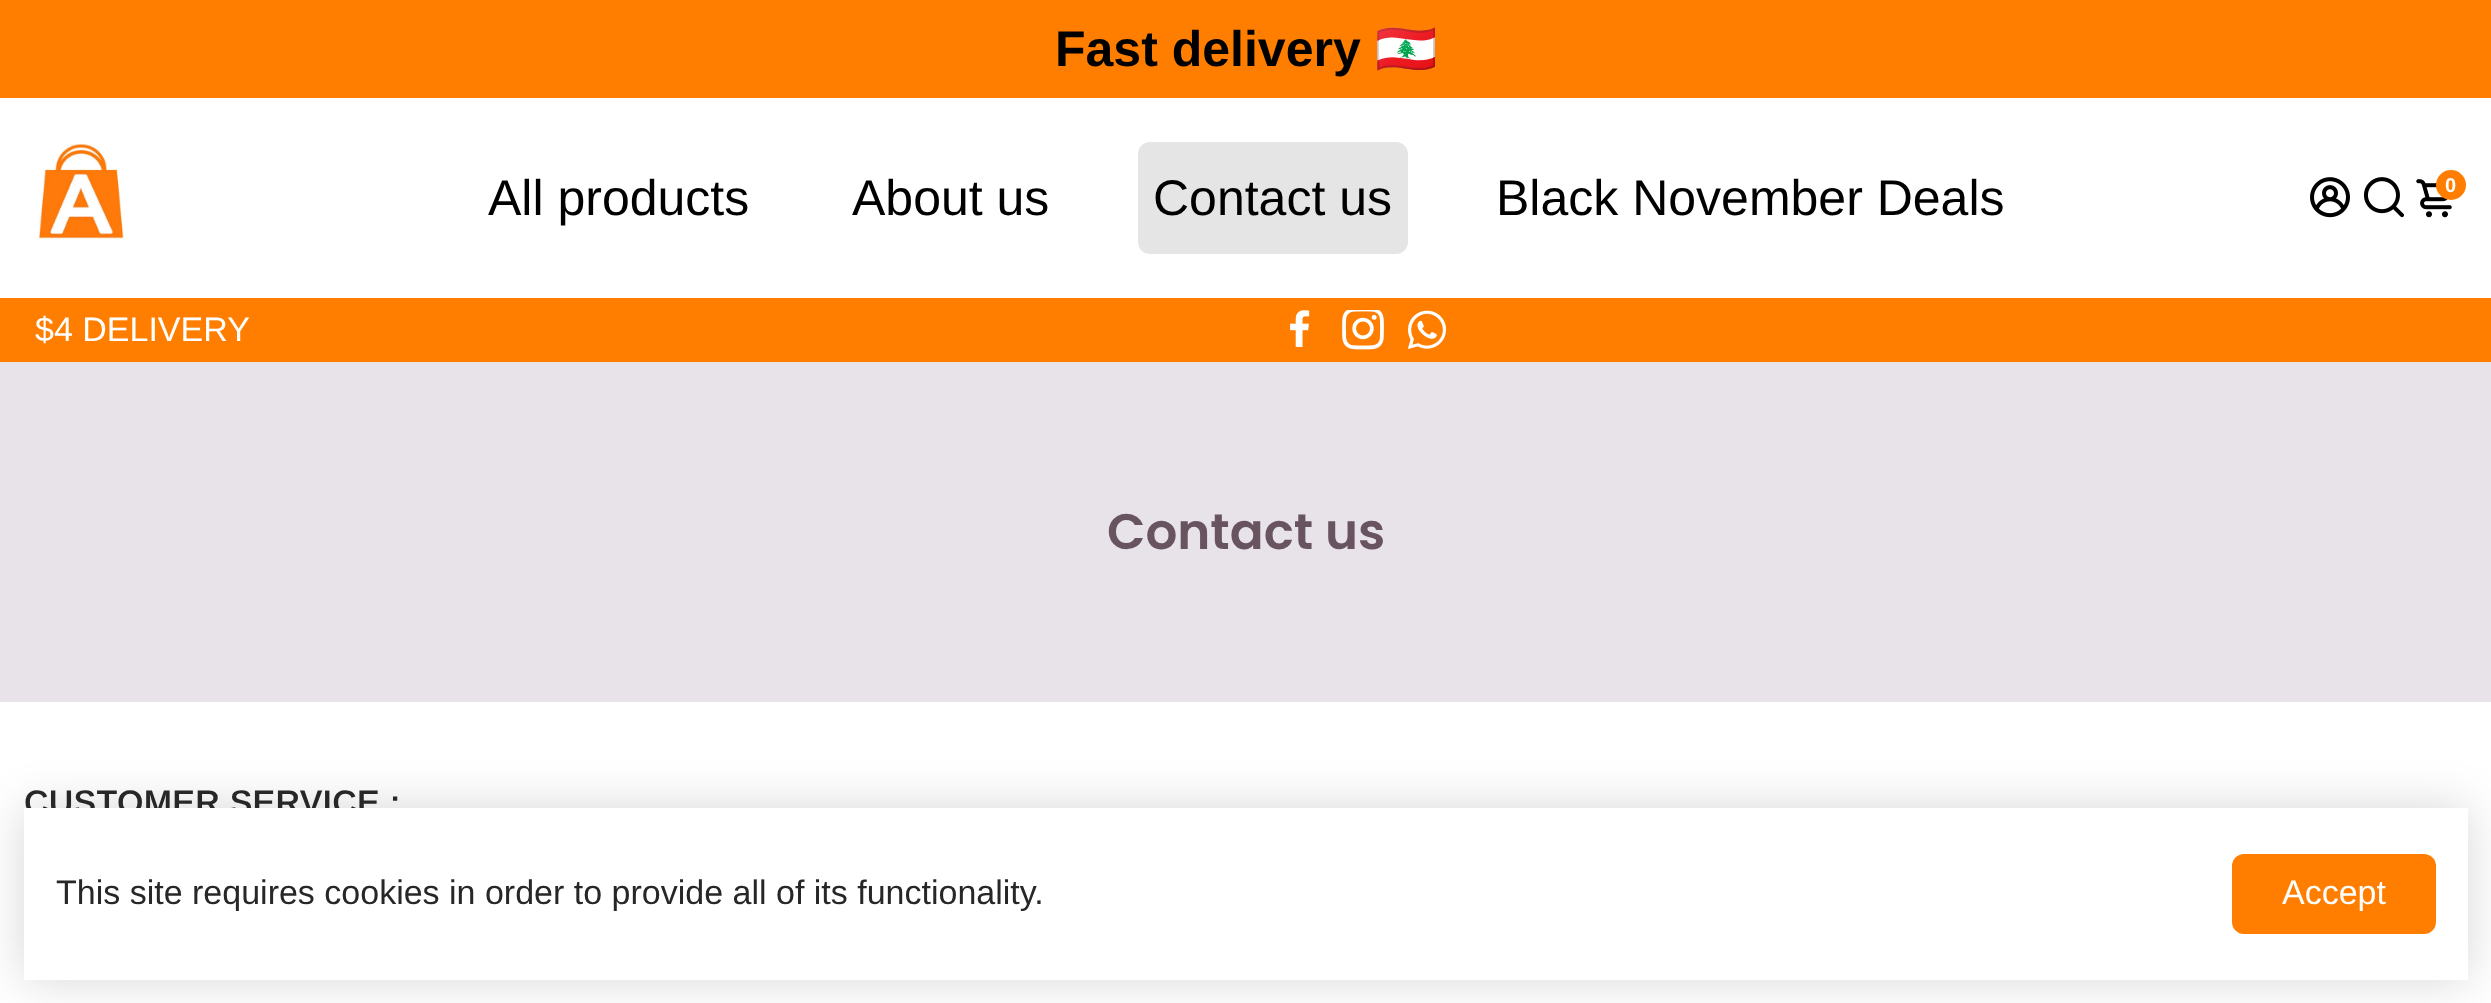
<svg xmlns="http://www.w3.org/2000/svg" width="2491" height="1003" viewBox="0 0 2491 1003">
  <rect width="100%" height="100%" fill="#fff"/>
  <path d="M0 0h2491v98H0z" fill="#ff7e00"/>
  <image x="38" y="143" width="87" height="96" href="img/1.png"/>
  <rect x="1138" y="142" width="270" height="112" rx="12" fill="#0000001a"/>
  <image x="2310" y="177" width="40" height="41" href="img/2.png"/>
  <image x="2363" y="177" width="41" height="41" href="img/3.png"/>
  <image x="2416" y="179" width="36" height="39" href="img/4.png"/>
  <circle cx="2451" cy="185" r="15" fill="#ff7e00"/>
  <path d="M0 298h2491v64H0z" fill="#ff7e00"/>
  <image x="1290" y="310" width="20" height="37" href="img/5.png"/>
  <image x="1342" y="310" width="42" height="40" href="img/6.png"/>
  <image x="1407" y="310" width="39" height="39" href="img/7.png"/>
  <path d="M0 362h2491v340H0z" fill="#e8e3e9"/>
  <path d="M24 808h2444v172H24z" fill="#00000029" filter="blur(24px)"/>
  <text x="1055" y="66" font-family="Arimo" font-size="50" font-weight="bold" fill="#000">Fast delivery</text>
  <text x="1375" y="66" font-family="Noto Color Emoji" font-size="50" font-weight="bold" fill="#000">🇱🇧</text>
  <g font-family="Arimo" font-size="50" fill="#000">
    <text x="488" y="215">All products</text>
    <text x="852" y="215">About us</text>
    <text x="1153" y="215">Contact us</text>
    <text x="1496" y="215">Black November Deals</text>
  </g>
  <text x="2445" y="192" font-family="Arimo" font-size="20" font-weight="bold" fill="#fff">0</text>
  <text x="35" y="341" font-family="Arimo" font-size="34" fill="#fff">$4 DELIVERY</text>
  <text x="1107" y="549" font-family="Poppins" font-size="50" font-weight="600" fill="#685361">Contact us</text>
  <text x="24" y="814" font-family="Arimo" font-size="34" font-weight="600" letter-spacing="0.25" fill="#272727">CUSTOMER SERVICE :</text>
  <path d="M24 808h2444v172H24z" fill="#fff"/>
  <text x="56" y="904" font-family="Arimo" font-size="34" fill="#272727">This site requires cookies in order to provide all of its functionality.</text>
  <rect x="2232" y="854" width="204" height="80" rx="12" fill="#ff7e00"/>
  <text x="2282" y="904" font-family="Arimo" font-size="34" fill="#fff">Accept</text>
</svg>
